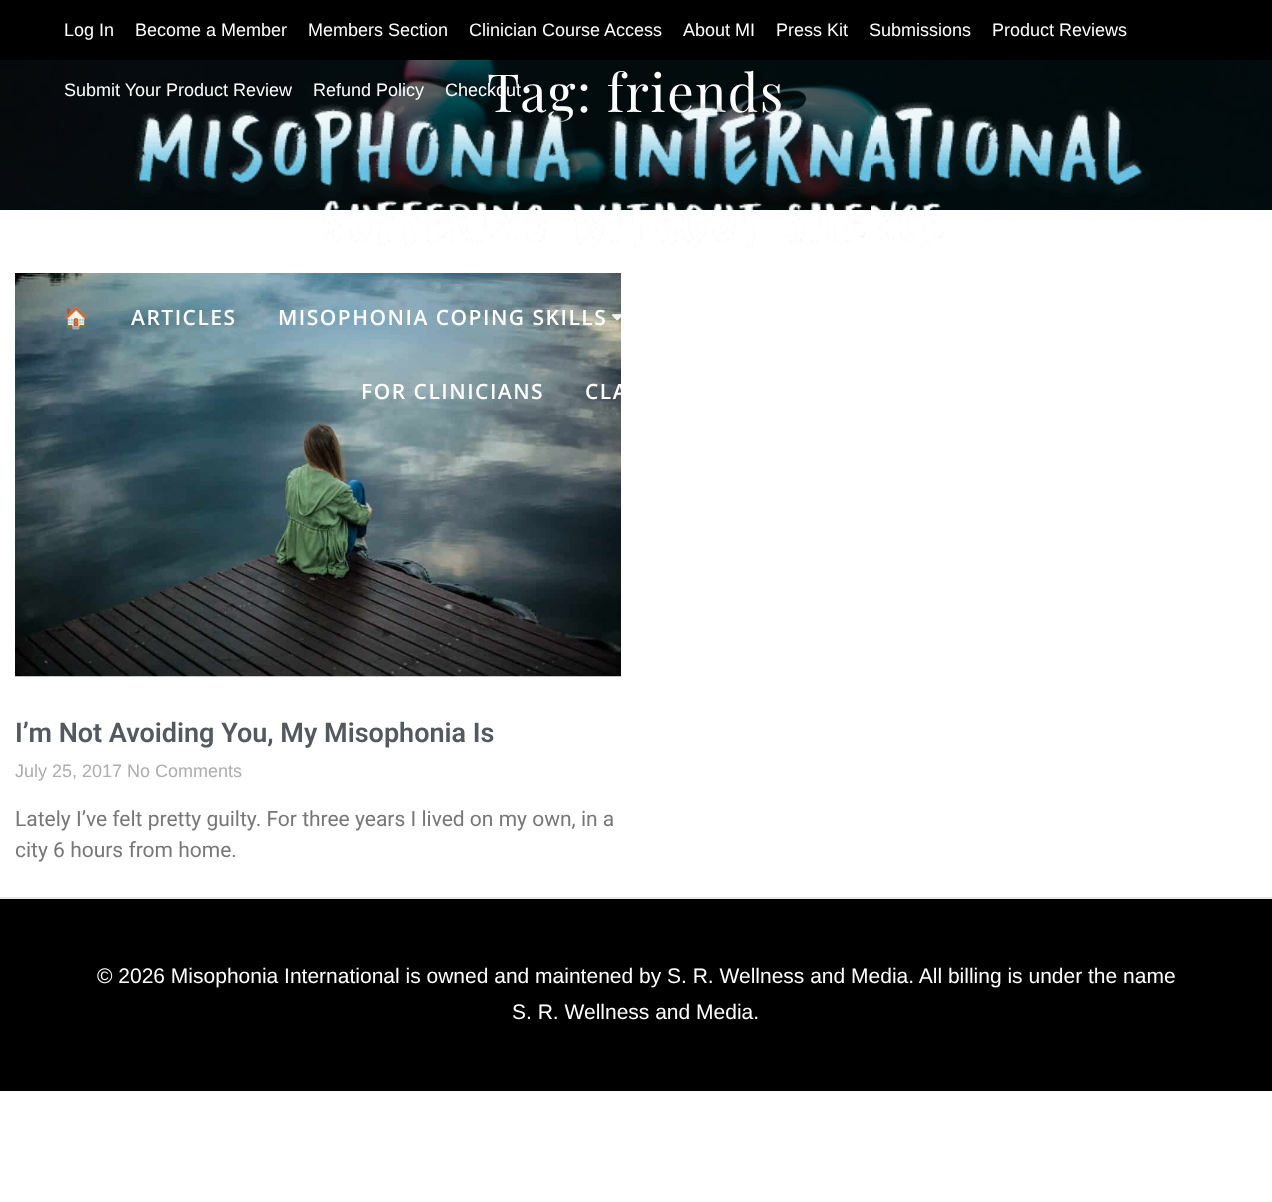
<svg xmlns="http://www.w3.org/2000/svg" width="1272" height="1202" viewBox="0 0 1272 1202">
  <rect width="100%" height="100%" fill="#fff"/>
  <path d="M0 0h1272v60H0z" fill="#000"/>
  <image x="15" y="273" width="606" height="404" href="img/4.png"/>
  <image x="612" y="314" width="9" height="7" href="img/2.png"/>
  <image x="0" y="60" width="1272" height="150" href="img/3.png"/>
  <path d="M0 899h1272v192H0z" fill="#000"/>
  <path d="M0 897h1272v2H0z" fill="#e8e8e8"/>
  <g font-family="Liberation Sans" font-size="18" fill="#fff">
    <text x="64" y="36">Log In</text>
    <text x="135" y="36">Become a Member</text>
    <text x="308" y="36">Members Section</text>
    <text x="469" y="36">Clinician Course Access</text>
    <text x="683" y="36">About MI</text>
    <text x="776" y="36">Press Kit</text>
    <text x="869" y="36">Submissions</text>
    <text x="992" y="36">Product Reviews</text>
    <text x="64" y="96">Submit Your Product Review</text>
    <text x="313" y="96">Refund Policy</text>
  </g>
  <text x="63" y="325" font-family="Noto Color Emoji" font-size="21" font-weight="bold" letter-spacing="1.5" fill="#fff">🏠</text>
  <g font-family="Open Sans" font-size="21" font-weight="600" letter-spacing="1.5" fill="#fff">
    <text x="131" y="325">ARTICLES</text>
    <text x="278" y="325">MISOPHONIA COPING SKILLS</text>
    <text x="361" y="399">FOR CLINICIANS</text>
    <text x="585" y="399">CLA</text>
  </g>
  <text x="487" y="112" font-family="Playfair Display" font-size="52.5" letter-spacing="1.4" fill="#fff">Tag: friends</text>
  <image x="133" y="102" width="1017" height="146" href="img/1.png"/>
  <text x="445" y="96" font-family="Liberation Sans" font-size="18" fill="#fff">Checkout</text>
  <text x="15" y="742" font-family="Roboto" font-size="27" font-weight="600" fill="#54595f">I’m Not Avoiding You, My Misophonia Is</text>
  <text x="15" y="777" font-family="Liberation Sans" font-size="18" fill="#adadad">July 25, 2017 No Comments</text>
  <g font-family="Roboto" font-size="21" fill="#777">
    <text x="15" y="826">Lately I’ve felt pretty guilty. For three years I lived on my own, in a</text>
    <text x="15" y="857">city 6 hours from home.</text>
  </g>
  <g font-family="Liberation Sans" font-size="21" fill="#fff">
    <text x="97" y="983">© 2026 Misophonia International is owned and maintened by S. R. Wellness and Media. All billing is under the name</text>
    <text x="512" y="1019">S. R. Wellness and Media.</text>
  </g>
</svg>
